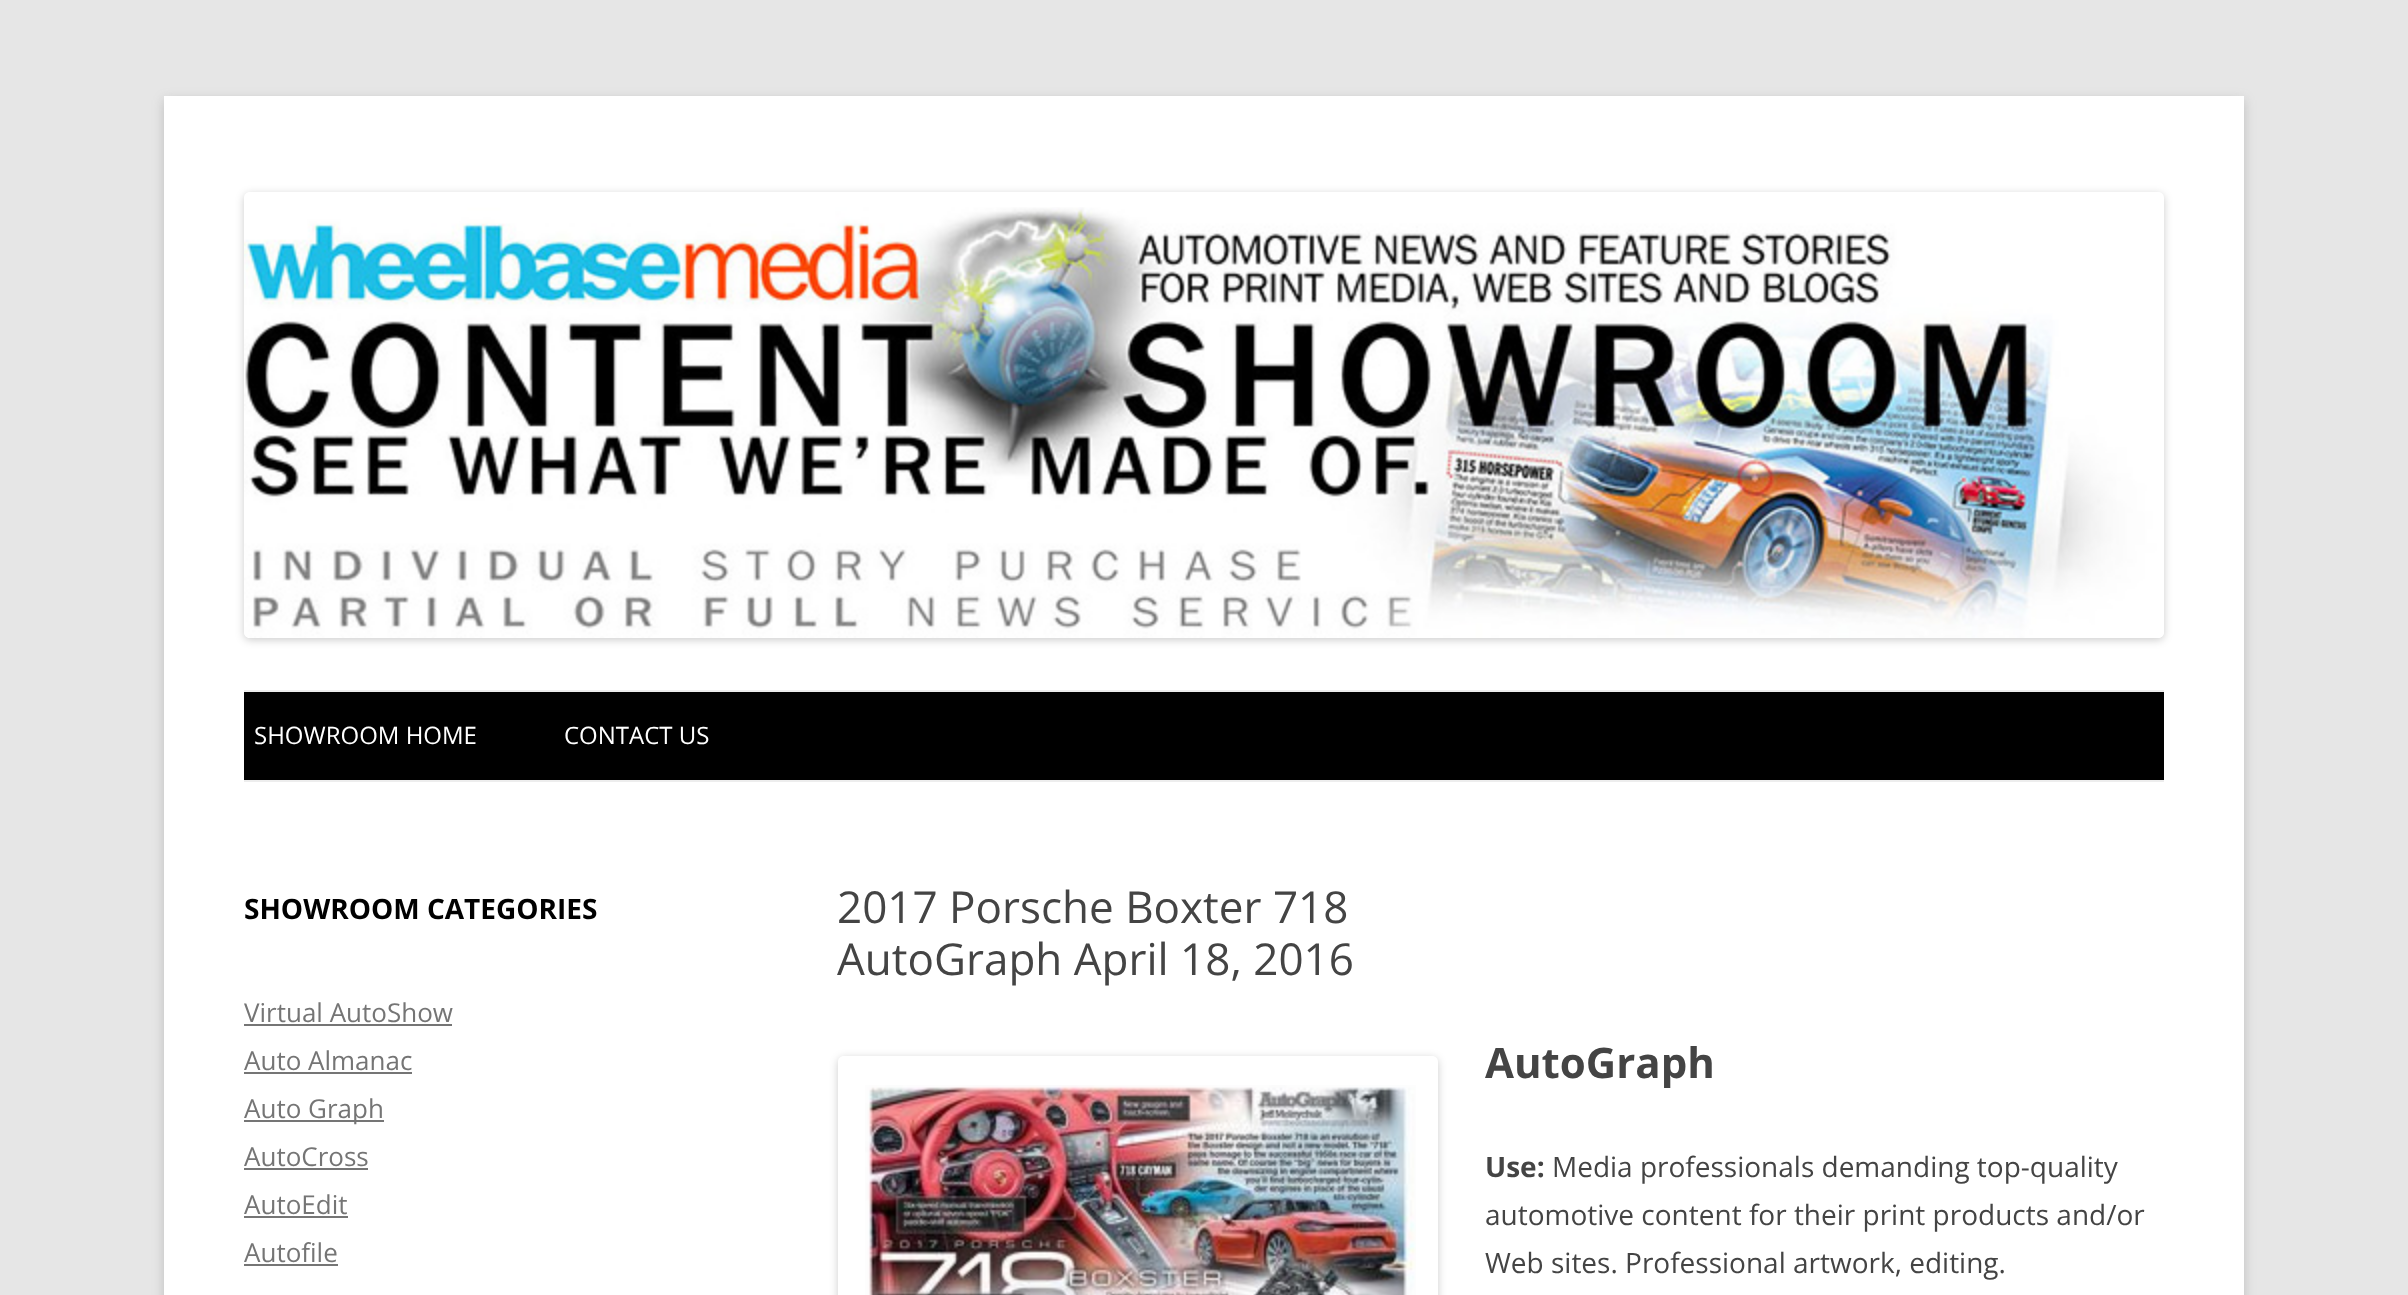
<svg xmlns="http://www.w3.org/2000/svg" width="2408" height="1295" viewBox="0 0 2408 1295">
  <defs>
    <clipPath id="clip1"><path d="M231 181H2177V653H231ZM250 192H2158C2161.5 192 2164 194.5 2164 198V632C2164 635.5 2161.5 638 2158 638H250C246.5 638 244 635.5 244 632V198C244 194.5 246.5 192 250 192Z" clip-rule="evenodd"/></clipPath>
    <clipPath id="clip2"><path d="M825 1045H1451V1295H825ZM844 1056H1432C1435.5 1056 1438 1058.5 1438 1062V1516C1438 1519.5 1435.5 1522 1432 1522H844C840.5 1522 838 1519.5 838 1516V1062C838 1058.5 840.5 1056 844 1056Z" clip-rule="evenodd"/></clipPath>
  </defs>
  <rect width="100%" height="100%" fill="#e6e6e6"/>
  <path d="M164 100h2080v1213H164z" fill="#6464644d" filter="blur(6px)"/>
  <path d="M164 96h2080v1199H164z" fill="#fff"/>
  <g clip-path="url(#clip1)">
    <rect x="244" y="194" width="1920" height="446" rx="6" fill="#00000033" filter="blur(4px)"/>
  </g>
  <image x="244" y="207" width="1920" height="431" href="img/1.png"/>
  <path d="M244 692h1920v88H244z" fill="#000"/>
  <path d="M244 690h1920v2H244z" fill="#ededed"/>
  <path d="M244 780h1920v2H244z" fill="#ededed"/>
  <path d="M244 1024h208v2H244z" fill="#757575"/>
  <path d="M244 1072h168v2H244z" fill="#757575"/>
  <path d="M244 1120h140v2H244z" fill="#757575"/>
  <path d="M244 1168h124v2H244z" fill="#757575"/>
  <path d="M244 1216h104v2H244z" fill="#757575"/>
  <path d="M244 1264h94v2H244z" fill="#757575"/>
  <g clip-path="url(#clip2)">
    <rect x="838" y="1058" width="600" height="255" rx="6" fill="#00000033" filter="blur(4px)"/>
  </g>
  <image x="865" y="1085" width="551" height="210" href="img/2.png"/>
  <g font-family="Open Sans" font-size="24" fill="#fff">
    <text x="254" y="744">SHOWROOM HOME</text>
    <text x="564" y="744">CONTACT US</text>
  </g>
  <text x="244" y="919" font-family="Open Sans" font-size="28" font-weight="bold" fill="#000">SHOWROOM CATEGORIES</text>
  <g font-family="Open Sans" font-size="26" fill="#757575">
    <text x="244" y="1022">Virtual AutoShow</text>
    <text x="244" y="1070">Auto Almanac</text>
    <text x="244" y="1118">Auto Graph</text>
    <text x="244" y="1166">AutoCross</text>
    <text x="244" y="1214">AutoEdit</text>
    <text x="244" y="1262">Autofile</text>
  </g>
  <g font-family="Open Sans" font-size="44" fill="#444">
    <text x="837" y="923">2017 Porsche Boxter 718</text>
    <text x="837" y="975">AutoGraph April 18, 2016</text>
  </g>
  <text x="1485" y="1078" font-family="Open Sans" font-size="42" font-weight="bold" fill="#444">AutoGraph</text>
  <text x="1485" y="1177" font-family="Open Sans" font-size="28" font-weight="bold" fill="#444">Use:</text>
  <g font-family="Open Sans" font-size="28" fill="#444">
    <text x="1552" y="1177">Media professionals demanding top-quality</text>
    <text x="1485" y="1225">automotive content for their print products and/or</text>
    <text x="1485" y="1273">Web sites. Professional artwork, editing.</text>
  </g>
</svg>
